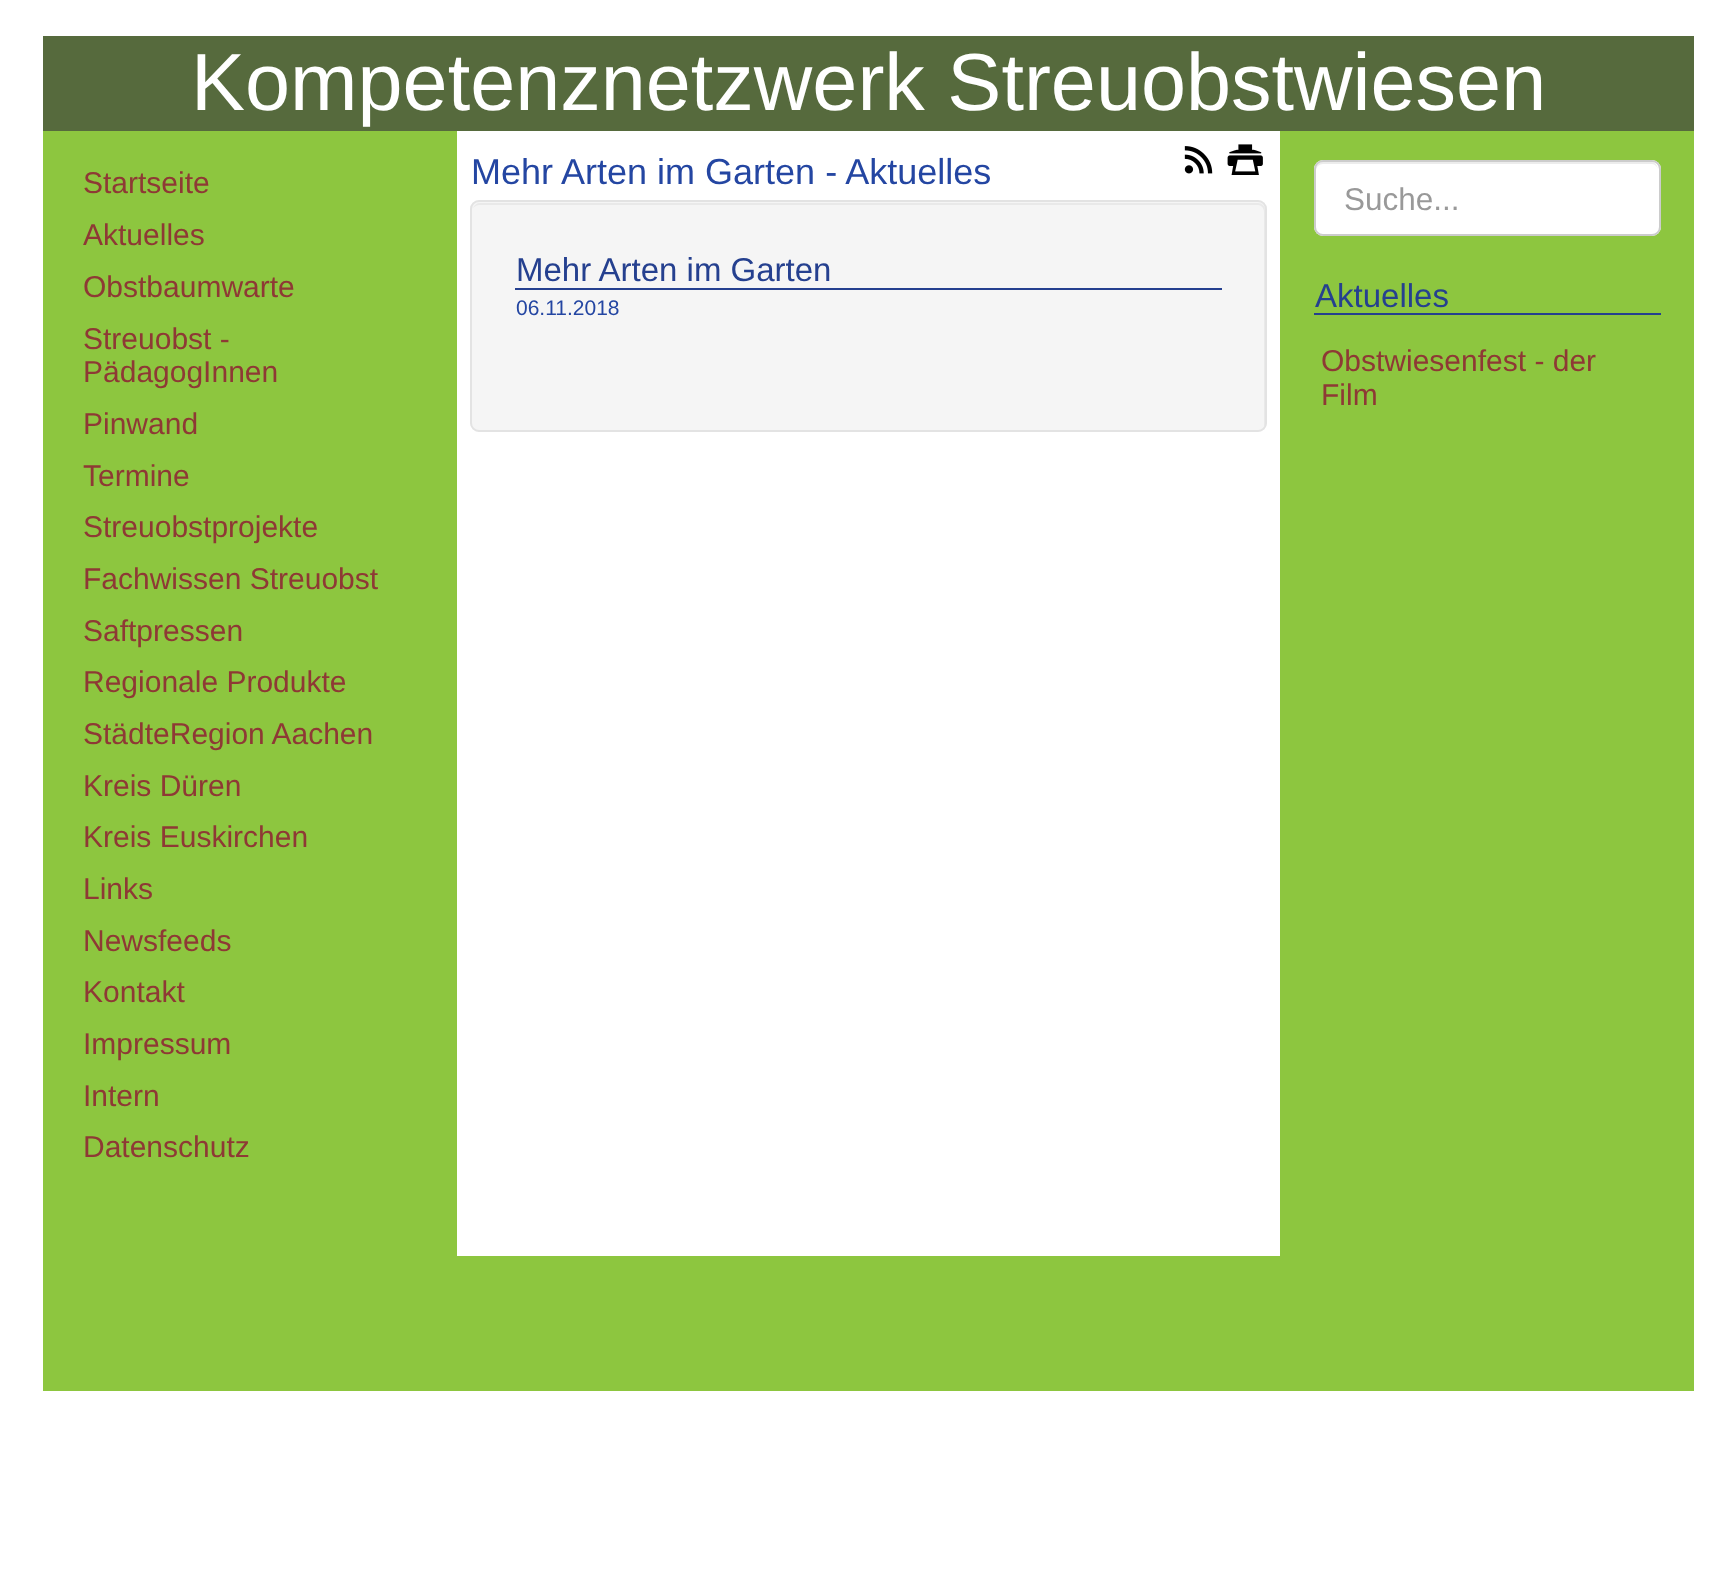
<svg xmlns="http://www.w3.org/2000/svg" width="1735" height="1573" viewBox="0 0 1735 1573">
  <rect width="100%" height="100%" fill="#fff"/>
  <path d="M43 36h1651v95H43z" fill="#566a3d"/>
  <path d="M43 131h1651v1260H43z" fill="#8dc63f"/>
  <path d="M457 131h823v1125H457z" fill="#fff"/>
  <image x="1184" y="146" width="29" height="28" href="img/1.png"/>
  <image x="1227" y="144" width="36" height="31" href="img/2.png"/>
  <rect x="470" y="200" width="797" height="232" rx="9" fill="#f5f5f5"/>
  <path d="M479 205H1258C1261 205 1264 208 1264 212V427C1265 426 1265 424 1265 423V210C1265 206 1262 203 1258 203H480C477 203 474 205 473 208C475 206 477 205 479 205Z" fill="#e9e9e9"/>
  <rect x="471" y="201" width="795" height="230" rx="8" fill="none" stroke="#e3e3e3" stroke-width="2"/>
  <path d="M515 288h707v2H515z" fill="#25408f"/>
  <rect x="1314" y="160" width="347" height="76" rx="9" fill="#fff"/>
  <path d="M1323 164H1652C1655 164 1658 167 1658 171C1658 167 1656 162 1651 162H1322C1317 163 1316 167 1316 171C1316 167 1319 164 1323 164Z" fill="#ececec"/>
  <rect x="1315" y="161" width="345" height="74" rx="8" fill="none" stroke="#ccc" stroke-width="2"/>
  <path d="M1314 313h347v2H1314z" fill="#25408f"/>
  <text x="191" y="110" font-family="Liberation Sans" font-size="81" fill="#fff">Kompetenznetzwerk Streuobstwiesen</text>
  <g font-family="Liberation Sans" font-size="30" fill="#8e3935">
    <text x="83" y="193">Startseite</text>
    <text x="83" y="245">Aktuelles</text>
    <text x="83" y="297">Obstbaumwarte</text>
    <text x="83" y="349">Streuobst -</text>
    <text x="83" y="382">PädagogInnen</text>
    <text x="83" y="434">Pinwand</text>
    <text x="83" y="486">Termine</text>
    <text x="83" y="537">Streuobstprojekte</text>
    <text x="83" y="589">Fachwissen Streuobst</text>
    <text x="83" y="641">Saftpressen</text>
    <text x="83" y="692">Regionale Produkte</text>
    <text x="83" y="744">StädteRegion Aachen</text>
    <text x="83" y="796">Kreis Düren</text>
    <text x="83" y="847">Kreis Euskirchen</text>
    <text x="83" y="899">Links</text>
    <text x="83" y="951">Newsfeeds</text>
    <text x="83" y="1002">Kontakt</text>
    <text x="83" y="1054">Impressum</text>
    <text x="83" y="1106">Intern</text>
    <text x="83" y="1157">Datenschutz</text>
  </g>
  <text x="471" y="184" font-family="Liberation Sans" font-size="36" fill="#2446a2">Mehr Arten im Garten - Aktuelles</text>
  <text x="516" y="281" font-family="Liberation Sans" font-size="33" fill="#25408f">Mehr Arten im Garten</text>
  <text x="516" y="315" font-family="Liberation Sans" font-size="21" fill="#2446a2">06.11.2018</text>
  <text x="1344" y="210" font-family="Liberation Sans" font-size="31.5" fill="#999">Suche...</text>
  <text x="1315" y="307" font-family="Liberation Sans" font-size="33" fill="#25408f">Aktuelles</text>
  <g font-family="Liberation Sans" font-size="30" fill="#8e3935">
    <text x="1321" y="371">Obstwiesenfest - der</text>
    <text x="1321" y="405">Film</text>
  </g>
</svg>
